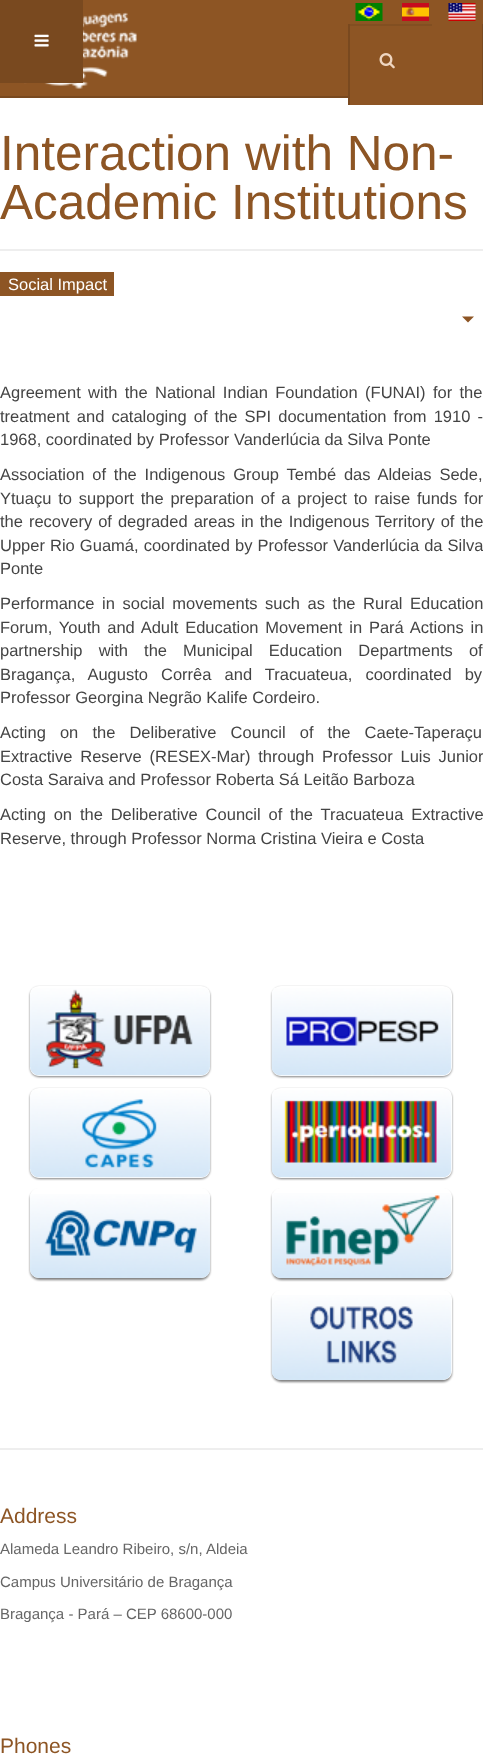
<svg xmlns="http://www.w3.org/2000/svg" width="483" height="1758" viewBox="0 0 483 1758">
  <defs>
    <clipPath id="clip1"><path d="M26 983H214V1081H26ZM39 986H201C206 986 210 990 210 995V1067C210 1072 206 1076 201 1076H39C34 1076 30 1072 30 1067V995C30 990 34 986 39 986Z" clip-rule="evenodd"/></clipPath>
    <clipPath id="clip2"><path d="M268 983H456V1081H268ZM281 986H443C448 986 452 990 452 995V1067C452 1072 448 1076 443 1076H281C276 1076 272 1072 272 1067V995C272 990 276 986 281 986Z" clip-rule="evenodd"/></clipPath>
    <clipPath id="clip3"><path d="M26 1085H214V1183H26ZM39 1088H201C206 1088 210 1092 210 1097V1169C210 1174 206 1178 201 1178H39C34 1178 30 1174 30 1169V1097C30 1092 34 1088 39 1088Z" clip-rule="evenodd"/></clipPath>
    <clipPath id="clip4"><path d="M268 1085H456V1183H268ZM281 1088H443C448 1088 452 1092 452 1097V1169C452 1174 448 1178 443 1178H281C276 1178 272 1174 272 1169V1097C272 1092 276 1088 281 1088Z" clip-rule="evenodd"/></clipPath>
    <clipPath id="clip5"><path d="M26 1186H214V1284H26ZM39 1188H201C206 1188 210 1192 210 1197V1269C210 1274 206 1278 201 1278H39C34 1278 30 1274 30 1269V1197C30 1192 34 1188 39 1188Z" clip-rule="evenodd"/></clipPath>
    <clipPath id="clip6"><path d="M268 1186H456V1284H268ZM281 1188H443C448 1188 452 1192 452 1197V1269C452 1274 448 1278 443 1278H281C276 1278 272 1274 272 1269V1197C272 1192 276 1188 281 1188Z" clip-rule="evenodd"/></clipPath>
    <clipPath id="clip7"><path d="M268 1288H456V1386H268ZM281 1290H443C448 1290 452 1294 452 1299V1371C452 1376 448 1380 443 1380H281C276 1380 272 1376 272 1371V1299C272 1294 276 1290 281 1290Z" clip-rule="evenodd"/></clipPath>
  </defs>
  <rect width="100%" height="100%" fill="#fff"/>
  <path d="M0 0h483v96H0z" fill="#8d5524"/>
  <path d="M0 96h348v2H0z" fill="#79491f"/>
  <image x="24" y="12" width="113" height="77" href="img/2.png"/>
  <path d="M0 0h83v83H0z" fill="#79491f"/>
  <image x="34" y="34" width="15" height="13" href="img/1.png"/>
  <image x="355" y="3" width="28" height="18" href="img/3.png"/>
  <image x="402" y="3" width="27" height="18" href="img/4.png"/>
  <image x="448" y="3" width="28" height="18" href="img/5.png"/>
  <path d="M350 96h132v9H350z" fill="#8d5524"/>
  <path d="M482 24h1v81H482z" fill="#79491f"/>
  <path d="M348 24h2v81H348z" fill="#79491f"/>
  <path d="M350 24h82v2H350z" fill="#824f21"/>
  <image x="379" y="53" width="16" height="16" href="img/6.png"/>
  <path d="M0 249h483v2H0z" fill="#eee"/>
  <path d="M0 272h114v24H0z" fill="#8d5524"/>
  <path d="M462 316.5H474L468 322.5Z" fill="#8d5524"/>
  <g clip-path="url(#clip1)">
    <rect x="30" y="987" width="180" height="90" rx="9" fill="#00000080" filter="blur(1px)"/>
  </g>
  <image x="30" y="988" width="180" height="88" href="img/7.png"/>
  <g clip-path="url(#clip2)">
    <rect x="272" y="987" width="180" height="90" rx="9" fill="#00000080" filter="blur(1px)"/>
  </g>
  <image x="271" y="988" width="181" height="88" href="img/8.png"/>
  <g clip-path="url(#clip3)">
    <rect x="30" y="1089" width="180" height="90" rx="9" fill="#00000080" filter="blur(1px)"/>
  </g>
  <image x="30" y="1090" width="180" height="88" href="img/9.png"/>
  <g clip-path="url(#clip4)">
    <rect x="272" y="1089" width="180" height="90" rx="9" fill="#00000080" filter="blur(1px)"/>
  </g>
  <image x="271" y="1090" width="181" height="88" href="img/10.png"/>
  <g clip-path="url(#clip5)">
    <rect x="30" y="1190" width="180" height="90" rx="9" fill="#00000080" filter="blur(1px)"/>
  </g>
  <image x="30" y="1194" width="180" height="84" href="img/11.png"/>
  <g clip-path="url(#clip6)">
    <rect x="272" y="1190" width="180" height="90" rx="9" fill="#00000080" filter="blur(1px)"/>
  </g>
  <image x="271" y="1193" width="181" height="85" href="img/12.png"/>
  <g clip-path="url(#clip7)">
    <rect x="272" y="1292" width="180" height="90" rx="9" fill="#00000080" filter="blur(1px)"/>
  </g>
  <image x="271" y="1295" width="181" height="85" href="img/13.png"/>
  <path d="M0 1448h483v2H0z" fill="#eee"/>
  <g font-family="Liberation Sans" font-size="49.5" fill="#8d5524">
    <text x="0" y="170">Interaction with Non-</text>
    <text x="0" y="219">Academic Institutions</text>
  </g>
  <text x="8" y="290" font-family="Liberation Sans" font-size="16.5" fill="#fff">Social Impact</text>
  <g font-family="Liberation Sans" font-size="16.5" fill="#444">
    <text x="0" y="398" word-spacing="2.75">Agreement with the National Indian Foundation (FUNAI) for the</text>
    <text x="0" y="422" word-spacing="2.5">treatment and cataloging of the SPI documentation from 1910 -</text>
    <text x="0" y="445">1968, coordinated by Professor Vanderlúcia da Silva Ponte</text>
    <text x="0" y="480" word-spacing="3.25">Association of the Indigenous Group Tembé das Aldeias Sede,</text>
    <text x="0" y="504" word-spacing="2.25">Ytuaçu to support the preparation of a project to raise funds for</text>
    <text x="0" y="527" word-spacing="1.4">the recovery of degraded areas in the Indigenous Territory of the</text>
    <text x="0" y="551" word-spacing="0.5">Upper Rio Guamá, coordinated by Professor Vanderlúcia da Silva</text>
    <text x="0" y="574">Ponte</text>
    <text x="0" y="609" word-spacing="3">Performance in social movements such as the Rural Education</text>
    <text x="0" y="633" word-spacing="2.25">Forum, Youth and Adult Education Movement in Pará Actions in</text>
    <text x="0" y="656" word-spacing="11.5">partnership with the Municipal Education Departments of</text>
    <text x="0" y="680" word-spacing="8.5">Bragança, Augusto Corrêa and Tracuateua, coordinated by</text>
    <text x="0" y="703">Professor Georgina Negrão Kalife Cordeiro.</text>
    <text x="0" y="738" word-spacing="9.5">Acting on the Deliberative Council of the Caete-Taperaçu</text>
    <text x="0" y="762" word-spacing="3.25">Extractive Reserve (RESEX-Mar) through Professor Luis Junior</text>
    <text x="0" y="785">Costa Saraiva and Professor Roberta Sá Leitão Barboza</text>
    <text x="0" y="820" word-spacing="3.25">Acting on the Deliberative Council of the Tracuateua Extractive</text>
    <text x="0" y="844">Reserve, through Professor Norma Cristina Vieira e Costa</text>
  </g>
  <text x="0" y="1523" font-family="Liberation Sans" font-size="21" fill="#8d5524">Address</text>
  <g font-family="Liberation Sans" font-size="15" fill="#666">
    <text x="0" y="1554">Alameda Leandro Ribeiro, s/n, Aldeia</text>
    <text x="0" y="1587">Campus Universitário de Bragança</text>
    <text x="0" y="1619">Bragança - Pará – CEP 68600-000</text>
  </g>
  <text x="0" y="1753" font-family="Liberation Sans" font-size="21" fill="#8d5524">Phones</text>
</svg>
